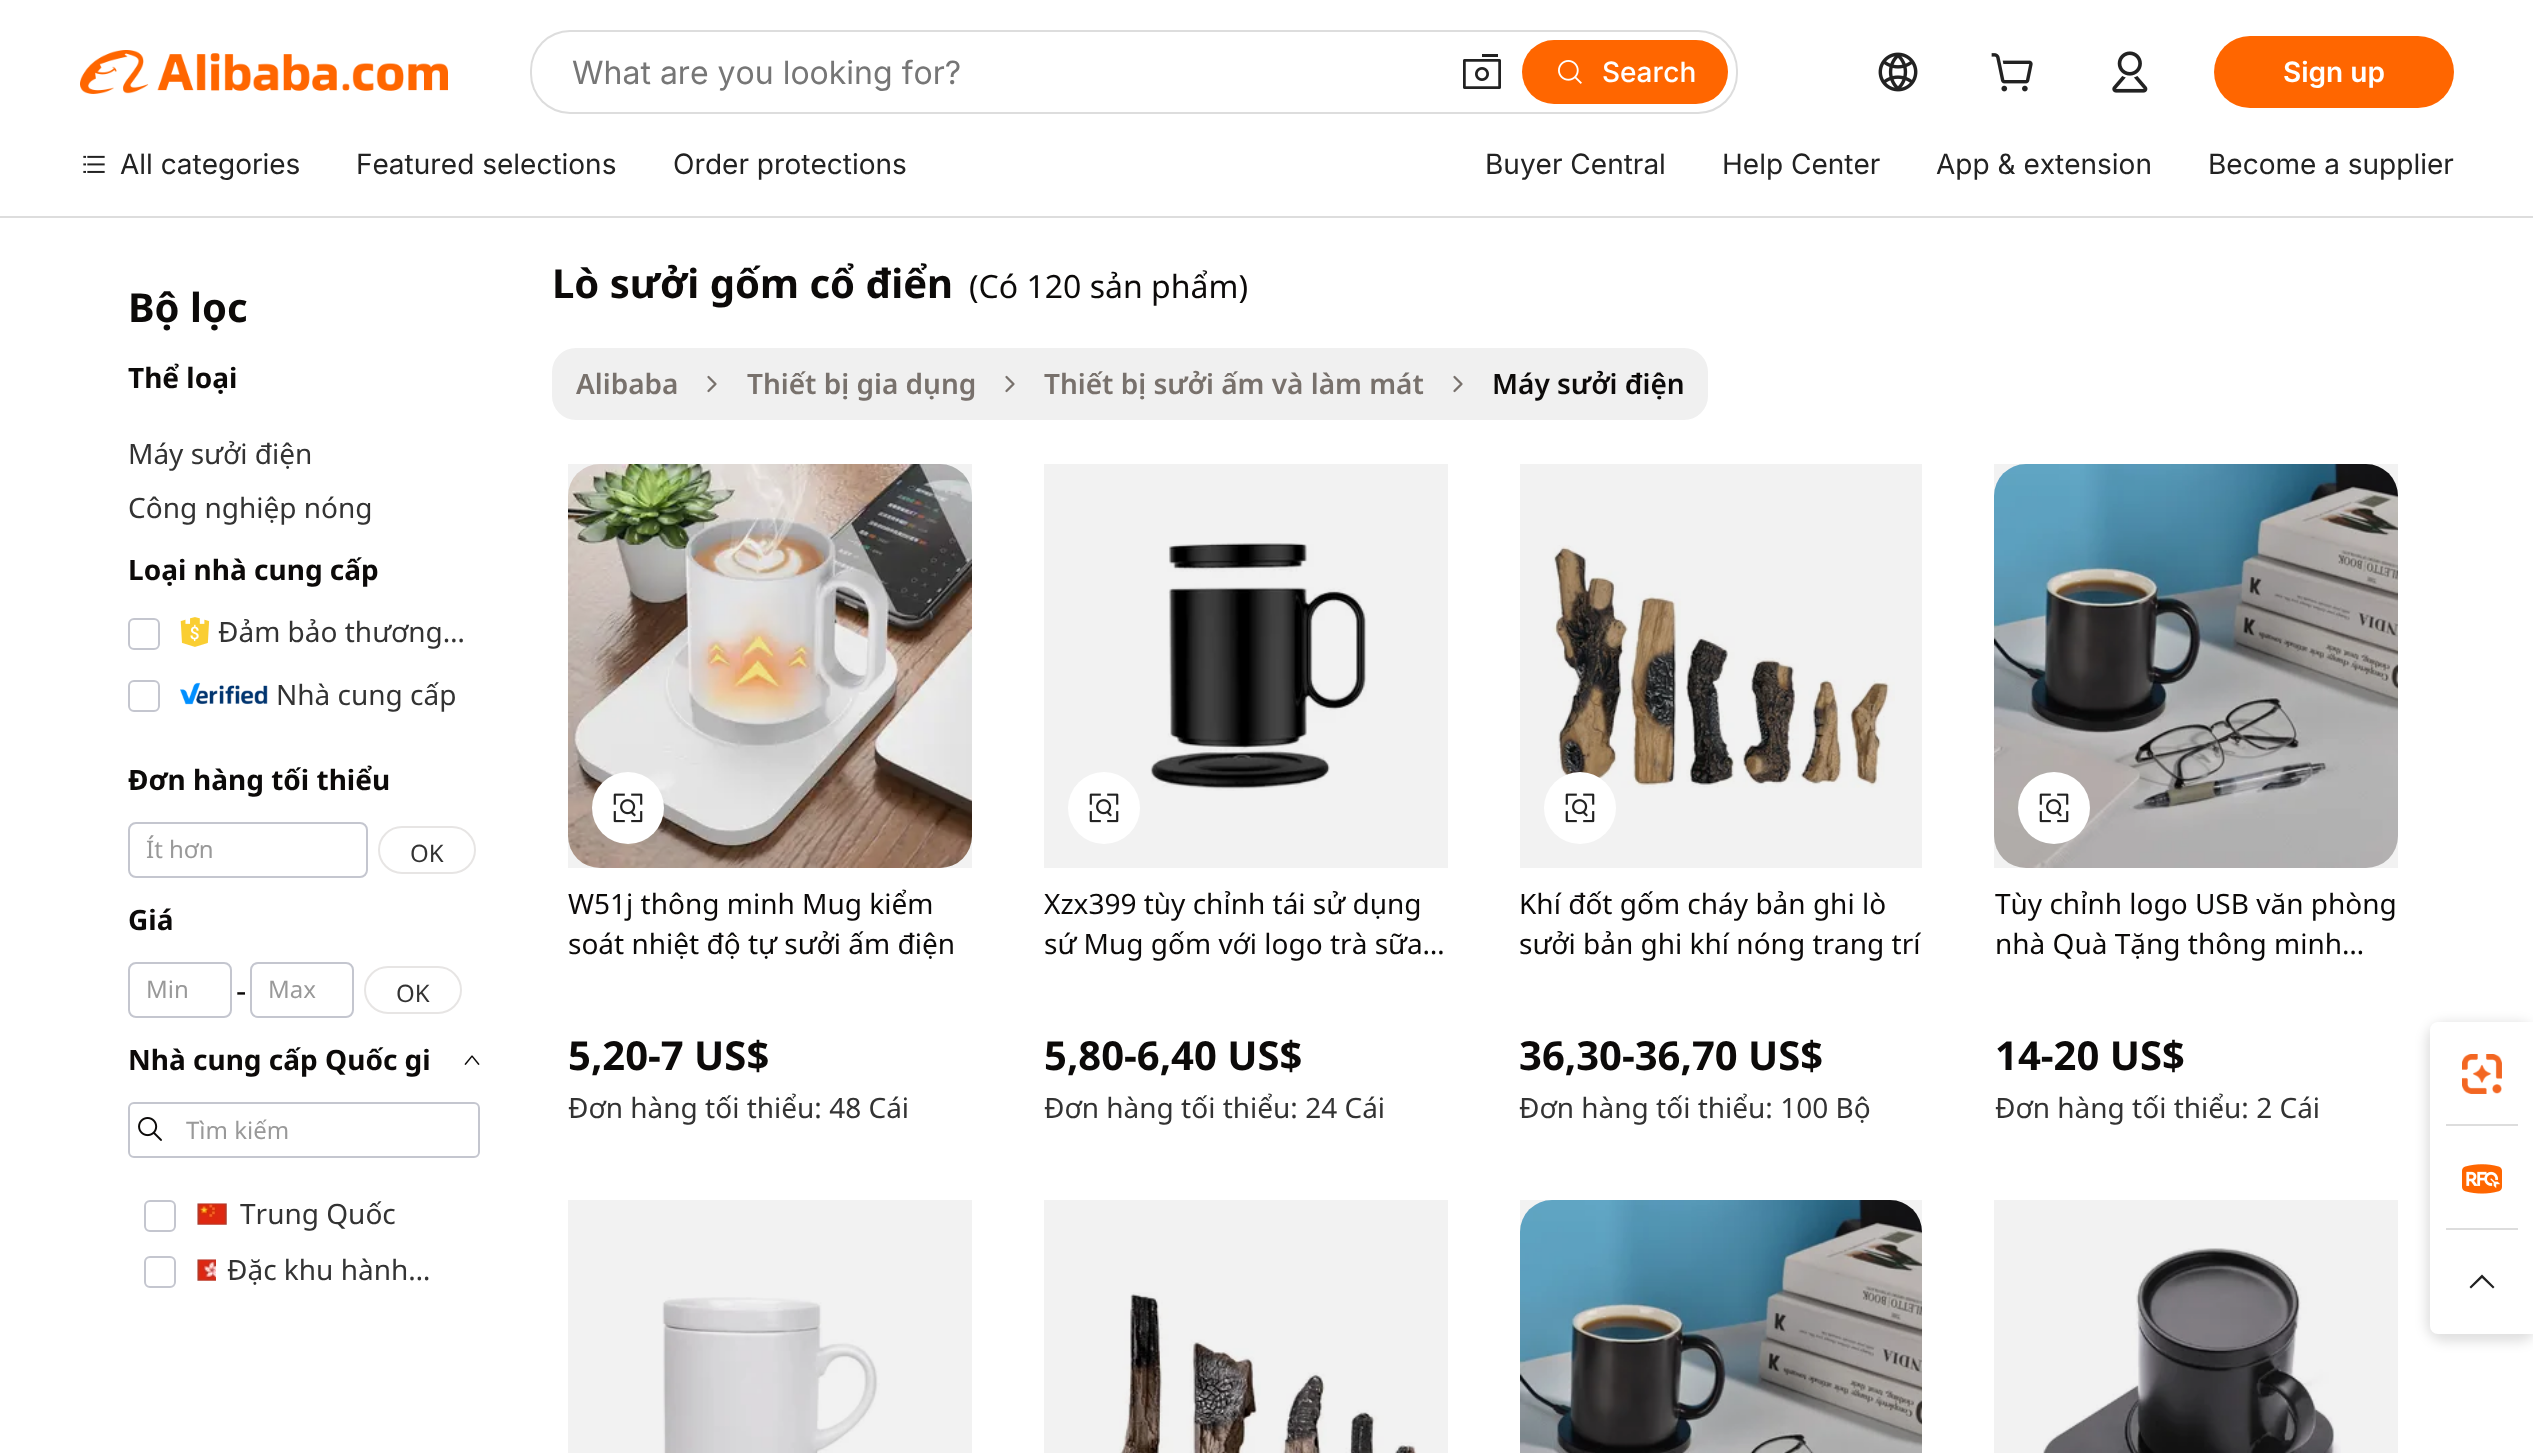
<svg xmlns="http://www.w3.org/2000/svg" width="2533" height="1453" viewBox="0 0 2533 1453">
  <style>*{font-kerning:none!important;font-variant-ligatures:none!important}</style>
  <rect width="100%" height="100%" fill="#fff"/>
  <path d="M0 216h2533v2H0z" fill="#ddd"/>
  <image x="80" y="50" width="368" height="44" href="img/1.png"/>
  <rect x="530" y="30" width="1208" height="84" rx="40" fill="#ddd"/>
  <rect x="532" y="32" width="1204" height="80" rx="38" fill="#fff"/>
  <image x="1463" y="54" width="38" height="35" href="img/2.png"/>
  <rect x="1522" y="40" width="206" height="64" rx="32" fill="#f60"/>
  <image x="1558" y="60" width="24" height="24" href="img/3.png"/>
  <image x="1878" y="52" width="40" height="40" href="img/4.png"/>
  <image x="1991" y="53" width="42" height="39" href="img/5.png"/>
  <image x="2112" y="51" width="36" height="42" href="img/6.png"/>
  <rect x="2214" y="36" width="240" height="72" rx="36" fill="#f60"/>
  <image x="83" y="155" width="22" height="18" href="img/7.png"/>
  <rect x="129" y="619" width="30" height="30" rx="5" fill="none" stroke="#c4c6cf" stroke-width="2"/>
  <image x="180" y="617" width="30" height="30" href="img/8.png"/>
  <rect x="129" y="681" width="30" height="30" rx="5" fill="none" stroke="#c4c6cf" stroke-width="2"/>
  <image x="180" y="682" width="88" height="23" href="img/9.png"/>
  <rect x="129" y="823" width="238" height="54" rx="7" fill="none" stroke="#c4c6cf" stroke-width="2"/>
  <rect x="379" y="827" width="96" height="46" rx="23" fill="none" stroke="#e7e5e4" stroke-width="2"/>
  <rect x="129" y="963" width="102" height="54" rx="7" fill="none" stroke="#c4c6cf" stroke-width="2"/>
  <rect x="251" y="963" width="102" height="54" rx="7" fill="none" stroke="#c4c6cf" stroke-width="2"/>
  <rect x="365" y="967" width="96" height="46" rx="23" fill="none" stroke="#e7e5e4" stroke-width="2"/>
  <image x="464" y="1055" width="16" height="10" href="img/10.png"/>
  <rect x="129" y="1103" width="350" height="54" rx="5" fill="none" stroke="#c4c6cf" stroke-width="2"/>
  <image x="138" y="1117" width="24" height="24" href="img/11.png"/>
  <rect x="145" y="1201" width="30" height="30" rx="5" fill="none" stroke="#c4c6cf" stroke-width="2"/>
  <image x="197" y="1203" width="30" height="22" href="img/12.png"/>
  <rect x="145" y="1257" width="30" height="30" rx="5" fill="none" stroke="#c4c6cf" stroke-width="2"/>
  <image x="197" y="1259" width="19" height="22" href="img/13.png"/>
  <rect x="552" y="348" width="1156" height="72" rx="24" fill="#f0f0f0"/>
  <path d="M708.5 391L715.5 384L708.5 377" fill="none" stroke="#78716c" stroke-width="2.3" stroke-linecap="round" stroke-linejoin="round"/>
  <path d="M1006.5 391L1013.5 384L1006.5 377" fill="none" stroke="#78716c" stroke-width="2.3" stroke-linecap="round" stroke-linejoin="round"/>
  <path d="M1454.5 391L1461.5 384L1454.5 377" fill="none" stroke="#78716c" stroke-width="2.3" stroke-linecap="round" stroke-linejoin="round"/>
  <image x="568" y="464" width="404" height="404" href="img/14.png"/>
  <path d="M568 464h404v404H568z" fill="#0000000d"/>
  <circle cx="628" cy="808" r="36" fill="#fff"/>
  <image x="613" y="793" width="30" height="30" href="img/15.png"/>
  <image x="1150" y="540" width="217" height="251" href="img/16.png"/>
  <path d="M1044 464h404v404H1044z" fill="#0000000d"/>
  <circle cx="1104" cy="808" r="36" fill="#fff"/>
  <image x="1089" y="793" width="30" height="30" href="img/15.png"/>
  <image x="1552" y="545" width="343" height="243" href="img/17.png"/>
  <path d="M1520 464h402v404H1520z" fill="#0000000d"/>
  <circle cx="1580" cy="808" r="36" fill="#fff"/>
  <image x="1565" y="793" width="30" height="30" href="img/15.png"/>
  <image x="1994" y="464" width="404" height="404" href="img/18.png"/>
  <path d="M1994 464h404v404H1994z" fill="#0000000d"/>
  <circle cx="2054" cy="808" r="36" fill="#fff"/>
  <image x="2039" y="793" width="30" height="30" href="img/15.png"/>
  <image x="662" y="1297" width="218" height="156" href="img/19.png"/>
  <path d="M568 1200h404v253H568z" fill="#0000000d"/>
  <image x="1119" y="1292" width="298" height="161" href="img/20.png"/>
  <path d="M1044 1200h404v253H1044z" fill="#0000000d"/>
  <image x="1520" y="1200" width="402" height="253" href="img/21.png"/>
  <path d="M1520 1200h402v253H1520z" fill="#0000000d"/>
  <image x="2043" y="1248" width="298" height="205" href="img/22.png"/>
  <path d="M1994 1200h404v253H1994z" fill="#0000000d"/>
  <rect x="2426" y="1022" width="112" height="320" rx="20" fill="#0000001f" filter="blur(6px)"/>
  <path d="M2446 1022H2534V1334H2446C2437 1334 2430 1327 2430 1318V1038C2430 1029 2437 1022 2446 1022Z" fill="#fff"/>
  <rect x="2430" y="1022" width="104" height="104" rx="8" fill="#fff"/>
  <image x="2462" y="1054" width="40" height="40" href="img/23.png"/>
  <path d="M2446 1124h72v2H2446z" fill="#ddd"/>
  <image x="2462" y="1164" width="40" height="30" href="img/24.png"/>
  <path d="M2446 1228h72v2H2446z" fill="#ddd"/>
  <rect x="2430" y="1230" width="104" height="104" rx="8" fill="#fff"/>
  <path d="M2482 1274.5L2494.5 1287L2493 1288.5L2482 1278L2471 1288.5L2469.5 1287Z" fill="#222"/>
  <text x="572" y="84" font-family="Inter" font-size="32" fill="#767676">What are you looking for?</text>
  <text x="1602" y="82" font-family="Inter" font-size="28" font-weight="500" fill="#fff">Search</text>
  <text x="2283" y="82" font-family="Inter" font-size="28" font-weight="600" fill="#fff">Sign up</text>
  <g font-family="Inter" font-size="28" fill="#222">
    <text x="120" y="174">All categories</text>
    <text x="356" y="174">Featured selections</text>
    <text x="673" y="174">Order protections</text>
    <text x="1485" y="174">Buyer Central</text>
    <text x="1722" y="174">Help Center</text>
    <text x="1936" y="174">App &amp; extension</text>
    <text x="2208" y="174">Become a supplier</text>
  </g>
  <text x="128" y="322" font-family="Noto Sans" font-size="40" font-weight="bold" fill="#0c0a09">Bộ lọc</text>
  <text x="128" y="388" font-family="Noto Sans" font-size="28" font-weight="bold" fill="#0c0a09">Thể loại</text>
  <g font-family="Noto Sans" font-size="28" fill="#333">
    <text x="128" y="464">Máy sưởi điện</text>
    <text x="128" y="518">Công nghiệp nóng</text>
  </g>
  <text x="128" y="580" font-family="Noto Sans" font-size="28" font-weight="bold" fill="#0c0a09">Loại nhà cung cấp</text>
  <g font-family="Noto Sans" font-size="28" fill="#333">
    <text x="218" y="642">Đảm bảo thương…</text>
    <text x="276" y="705">Nhà cung cấp</text>
  </g>
  <text x="128" y="790" font-family="Noto Sans" font-size="28" font-weight="bold" fill="#0c0a09">Đơn hàng tối thiểu</text>
  <text x="146" y="858" font-family="Noto Sans" font-size="24" fill="#999">Ít hơn</text>
  <text x="410" y="862" font-family="Noto Sans" font-size="24" fill="#333">OK</text>
  <text x="128" y="930" font-family="Noto Sans" font-size="28" font-weight="bold" fill="#0c0a09">Giá</text>
  <text x="146" y="998" font-family="Noto Sans" font-size="24" fill="#999">Min</text>
  <text x="236" y="1002" font-family="Noto Sans" font-size="32" fill="#0c0a09">-</text>
  <text x="268" y="998" font-family="Noto Sans" font-size="24" fill="#999">Max</text>
  <text x="396" y="1002" font-family="Noto Sans" font-size="24" fill="#333">OK</text>
  <text x="128" y="1070" font-family="Noto Sans" font-size="28" font-weight="bold" fill="#0c0a09">Nhà cung cấp Quốc gi</text>
  <text x="186" y="1139" font-family="Noto Sans" font-size="24" fill="#999">Tìm kiếm</text>
  <g font-family="Noto Sans" font-size="28" fill="#333">
    <text x="240" y="1224">Trung Quốc</text>
    <text x="227" y="1280">Đặc khu hành…</text>
  </g>
  <text x="552" y="298" font-family="Noto Sans" font-size="40" font-weight="bold" fill="#0c0a09">Lò sưởi gốm cổ điển</text>
  <text x="969" y="298" font-family="Noto Sans" font-size="32" fill="#0c0a09">(Có 120 sản phẩm)</text>
  <g font-family="Noto Sans" font-size="28" font-weight="600" fill="#78716c">
    <text x="576" y="394">Alibaba</text>
    <text x="747" y="394">Thiết bị gia dụng</text>
    <text x="1044" y="394">Thiết bị sưởi ấm và làm mát</text>
  </g>
  <text x="1492" y="394" font-family="Noto Sans" font-size="28" font-weight="600" fill="#0c0a09">Máy sưởi điện</text>
  <g font-family="Noto Sans" font-size="28" fill="#0c0a09">
    <text x="568" y="914">W51j thông minh Mug kiểm</text>
    <text x="568" y="954">soát nhiệt độ tự sưởi ấm điện</text>
  </g>
  <text x="568" y="1070" font-family="Noto Sans" font-size="40" font-weight="bold" fill="#0c0a09">5,20-7 US$</text>
  <text x="568" y="1118" font-family="Noto Sans" font-size="28" fill="#333">Đơn hàng tối thiểu: 48 Cái</text>
  <g font-family="Noto Sans" font-size="28" fill="#0c0a09">
    <text x="1044" y="914">Xzx399 tùy chỉnh tái sử dụng</text>
    <text x="1044" y="954">sứ Mug gốm với logo trà sữa…</text>
  </g>
  <text x="1044" y="1070" font-family="Noto Sans" font-size="40" font-weight="bold" fill="#0c0a09">5,80-6,40 US$</text>
  <text x="1044" y="1118" font-family="Noto Sans" font-size="28" fill="#333">Đơn hàng tối thiểu: 24 Cái</text>
  <g font-family="Noto Sans" font-size="28" fill="#0c0a09">
    <text x="1519" y="914">Khí đốt gốm cháy bản ghi lò</text>
    <text x="1519" y="954">sưởi bản ghi khí nóng trang trí</text>
  </g>
  <text x="1519" y="1070" font-family="Noto Sans" font-size="40" font-weight="bold" fill="#0c0a09">36,30-36,70 US$</text>
  <text x="1519" y="1118" font-family="Noto Sans" font-size="28" fill="#333">Đơn hàng tối thiểu: 100 Bộ</text>
  <g font-family="Noto Sans" font-size="28" fill="#0c0a09">
    <text x="1995" y="914">Tùy chỉnh logo USB văn phòng</text>
    <text x="1995" y="954">nhà Quà Tặng thông minh…</text>
  </g>
  <text x="1995" y="1070" font-family="Noto Sans" font-size="40" font-weight="bold" fill="#0c0a09">14-20 US$</text>
  <text x="1995" y="1118" font-family="Noto Sans" font-size="28" fill="#333">Đơn hàng tối thiểu: 2 Cái</text>
</svg>
